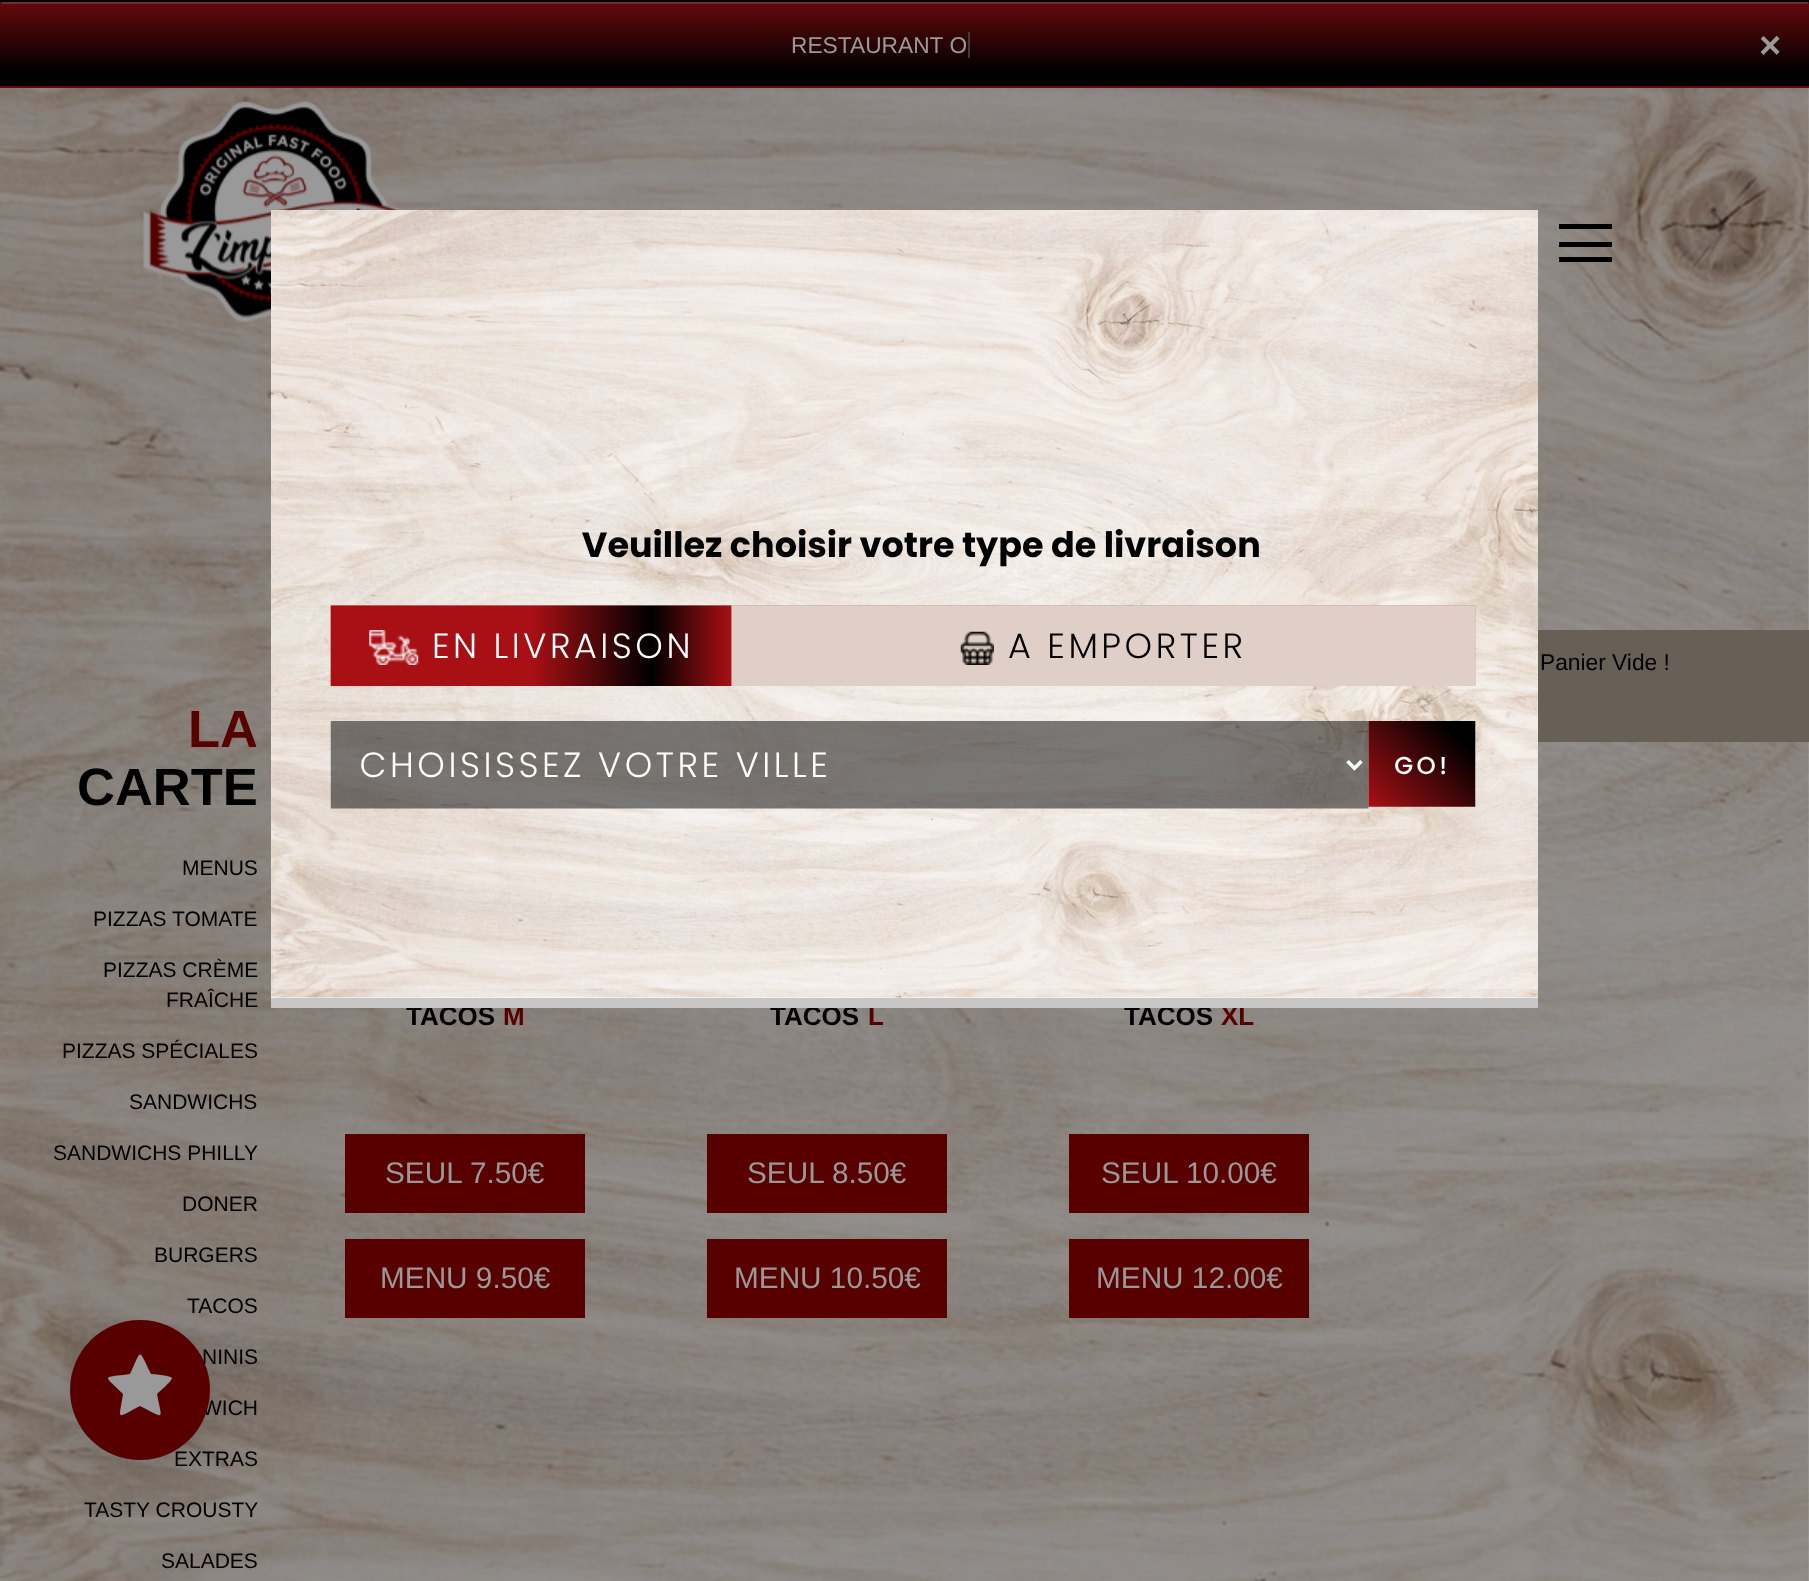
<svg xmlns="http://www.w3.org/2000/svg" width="1809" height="1581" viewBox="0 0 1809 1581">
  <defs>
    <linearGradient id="g1" gradientUnits="userSpaceOnUse" x1="905" y1="-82" x2="905" y2="1.8"><stop offset="0" stop-color="#650a0d"/><stop offset="0.83" stop-color="#000"/></linearGradient>
    <linearGradient id="g2" gradientUnits="userSpaceOnUse" x1="905" y1="1.7" x2="905" y2="86"><stop offset="0" stop-color="#650a0d"/><stop offset="0.83" stop-color="#000"/></linearGradient>
    <linearGradient id="g3" gradientUnits="userSpaceOnUse" x1="905" y1="86" x2="905" y2="170"><stop offset="0" stop-color="#650a0d"/><stop offset="0.83" stop-color="#000"/></linearGradient>
  </defs>
  <rect width="100%" height="100%" fill="#fff"/>
  <image x="0" y="88" width="1809" height="1493" href="img/1.png"/>
  <path d="M0 2h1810v87H0z" fill="#0000000d" filter="blur(2px)"/>
  <path d="M0 0h1809v2H0z" fill="url(#g1)"/>
  <path d="M0 2h1809v84H0z" fill="url(#g2)"/>
  <path d="M0 86h1809v2H0z" fill="url(#g3)"/>
  <path d="M2 2h1806v2H2z" fill="#712e2f"/>
  <path d="M968 32h2v26H968z" fill="#3d3d3d"/>
  <image x="143" y="101" width="262" height="223" href="img/3.png"/>
  <image x="271" y="210" width="1267" height="788" href="img/2.png"/>
  <path d="M1559 242h53v5H1559z" fill="#000"/>
  <path d="M1559 224h53v5H1559z" fill="#000"/>
  <path d="M1559 257h53v5H1559z" fill="#000"/>
  <path d="M1538 630h271v112H1538z" fill="#685f56"/>
  <path d="M345 1134h240v79H345z" fill="#580000"/>
  <path d="M345 1239h240v79H345z" fill="#580000"/>
  <path d="M707 1134h240v79H707z" fill="#580000"/>
  <path d="M707 1239h240v79H707z" fill="#580000"/>
  <path d="M1069 1134h240v79H1069z" fill="#580000"/>
  <path d="M1069 1239h240v79H1069z" fill="#580000"/>
  <rect x="70" y="1337" width="140" height="140" rx="70" fill="#0000001a" filter="blur(17.5px)"/>
  <text x="791" y="53" font-family="Liberation Sans" font-size="22.75" fill="#999">RESTAURANT O</text>
  <text x="1759" y="58" font-family="Liberation Sans" font-size="38" font-weight="bold" fill="#999">×</text>
  <text x="1540" y="670" font-family="Liberation Sans" font-size="22.75" fill="#000">Panier Vide !</text>
  <text x="188" y="747" font-family="Liberation Sans" font-size="52.5" font-weight="bold" fill="#580000">LA</text>
  <text x="77" y="805" font-family="Liberation Sans" font-size="52.5" font-weight="bold" fill="#000">CARTE</text>
  <g font-family="Liberation Sans" font-size="21" fill="#000">
    <text x="182" y="875">MENUS</text>
    <text x="93" y="926">PIZZAS TOMATE</text>
    <text x="103" y="977">PIZZAS CRÈME</text>
    <text x="166" y="1007">FRAÎCHE</text>
    <text x="62" y="1058">PIZZAS SPÉCIALES</text>
    <text x="129" y="1109">SANDWICHS</text>
    <text x="53" y="1160">SANDWICHS PHILLY</text>
    <text x="182" y="1211">DONER</text>
    <text x="154" y="1262">BURGERS</text>
    <text x="187" y="1313">TACOS</text>
    <text x="202" y="1364">NINIS</text>
    <text x="202" y="1415">WICH</text>
    <text x="174" y="1466">EXTRAS</text>
    <text x="84" y="1517">TASTY CROUSTY</text>
    <text x="161" y="1568">SALADES</text>
  </g>
  <text x="406" y="1025" font-family="Liberation Sans" font-size="26" font-weight="bold" fill="#000">TACOS</text>
  <text x="503" y="1025" font-family="Liberation Sans" font-size="26" font-weight="bold" fill="#580000">M</text>
  <g font-family="Liberation Sans" font-size="29.75" fill="#999">
    <text x="385" y="1183">SEUL 7.50€</text>
    <text x="380" y="1288">MENU 9.50€</text>
  </g>
  <text x="770" y="1025" font-family="Liberation Sans" font-size="26" font-weight="bold" fill="#000">TACOS</text>
  <text x="868" y="1025" font-family="Liberation Sans" font-size="26" font-weight="bold" fill="#580000">L</text>
  <g font-family="Liberation Sans" font-size="29.75" fill="#999">
    <text x="747" y="1183">SEUL 8.50€</text>
    <text x="734" y="1288">MENU 10.50€</text>
  </g>
  <text x="1124" y="1025" font-family="Liberation Sans" font-size="26" font-weight="bold" fill="#000">TACOS</text>
  <text x="1221" y="1025" font-family="Liberation Sans" font-size="26" font-weight="bold" fill="#580000">XL</text>
  <path d="M271 998h1267v10H271z" fill="#c7c6c5"/>
  <g font-family="Liberation Sans" font-size="29.75" fill="#999">
    <text x="1101" y="1183">SEUL 10.00€</text>
    <text x="1096" y="1288">MENU 12.00€</text>
  </g>
  <circle cx="140" cy="1390" r="70" fill="#580000"/>
  <path d="M172 1378C172 1381 159 1392 157 1394C162 1421 166 1419 140 1406C115 1419 119 1421 123 1394C103 1374 101 1378 130 1374C142 1348 138 1348 151 1374C154 1374 172 1376 172 1378Z" fill="#999"/>
</svg>
